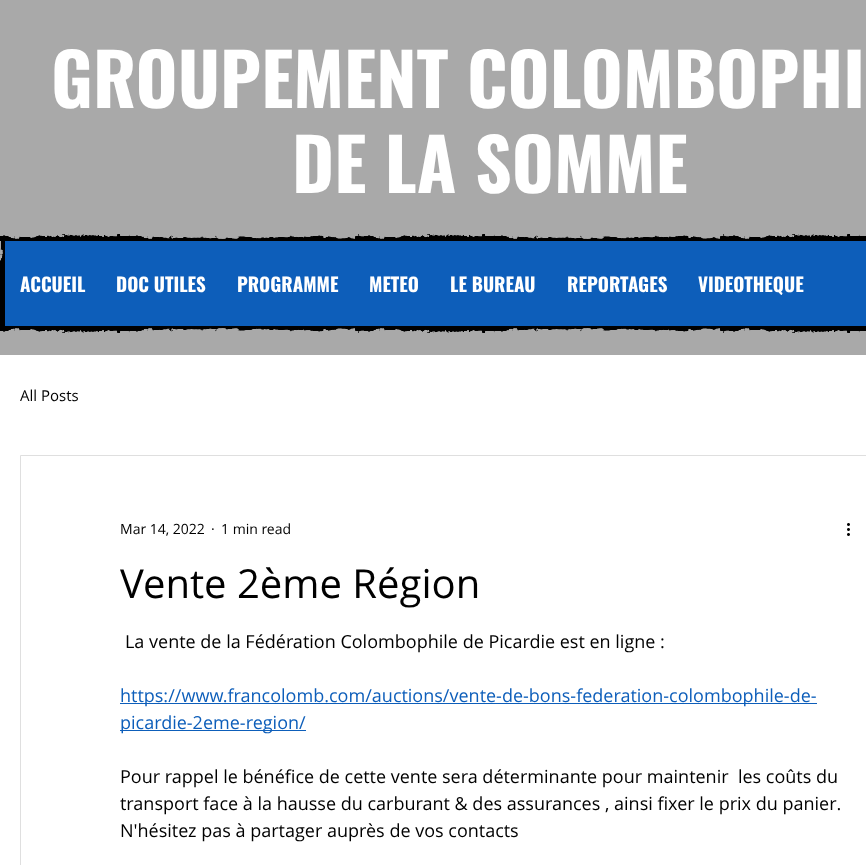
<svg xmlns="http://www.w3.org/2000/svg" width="866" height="865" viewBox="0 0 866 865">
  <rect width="100%" height="100%" fill="#a9a9a9"/>
  <image x="0" y="234" width="866" height="7" href="img/1.png"/>
  <image x="0" y="241" width="5" height="85" href="img/2.png"/>
  <path d="M5 241h861v85H5z" fill="#0d5eba"/>
  <image x="0" y="326" width="866" height="7" href="img/3.png"/>
  <path d="M0 355h866v510H0z" fill="#fff"/>
  <path d="M20.5 455.5h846v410H20.5z" fill="none" stroke="#dfdfdf"/>
  <image x="847" y="523" width="3" height="13" href="img/4.png"/>
  <path d="M120 703h697v1H120z" fill="#0d5eba"/>
  <path d="M120 730h186v1H120z" fill="#0d5eba"/>
  <g font-family="Oswald" font-size="72" font-weight="bold" fill="#fff">
    <text x="51" y="108">GROUPEMENT COLOMBOPHI</text>
    <text x="292" y="193">DE LA SOMME</text>
  </g>
  <g font-family="Oswald" font-size="19" font-weight="bold" fill="#fff">
    <text x="20" y="292">ACCUEIL</text>
    <text x="116" y="292">DOC UTILES</text>
    <text x="237" y="292">PROGRAMME</text>
    <text x="369" y="292">METEO</text>
    <text x="450" y="292">LE BUREAU</text>
    <text x="567" y="292">REPORTAGES</text>
    <text x="698" y="292">VIDEOTHEQUE</text>
  </g>
  <text x="20" y="401" font-family="Open Sans" font-size="15" fill="#000">All Posts</text>
  <g font-family="Open Sans" font-size="14" fill="#000">
    <text x="120" y="534">Mar 14, 2022</text>
    <text x="211" y="534">·</text>
    <text x="221" y="534">1 min read</text>
  </g>
  <text x="120" y="598" font-family="Open Sans" font-size="40" fill="#000">Vente 2ème Région</text>
  <text x="125" y="648" font-family="Open Sans" font-size="18" fill="#000">La vente de la Fédération Colombophile de Picardie est en ligne :</text>
  <g font-family="Open Sans" font-size="18" fill="#0d5eba">
    <text x="120" y="702">https://www.francolomb.com/auctions/vente-de-bons-federation-colombophile-de-</text>
    <text x="120" y="729">picardie-2eme-region/</text>
  </g>
  <g font-family="Open Sans" font-size="18" fill="#000">
    <text x="120" y="783" xml:space="preserve">Pour rappel le bénéfice de cette vente sera déterminante pour maintenir  les coûts du</text>
    <text x="120" y="810">transport face à la hausse du carburant &amp; des assurances , ainsi fixer le prix du panier.</text>
    <text x="120" y="837">N'hésitez pas à partager auprès de vos contacts</text>
  </g>
</svg>
